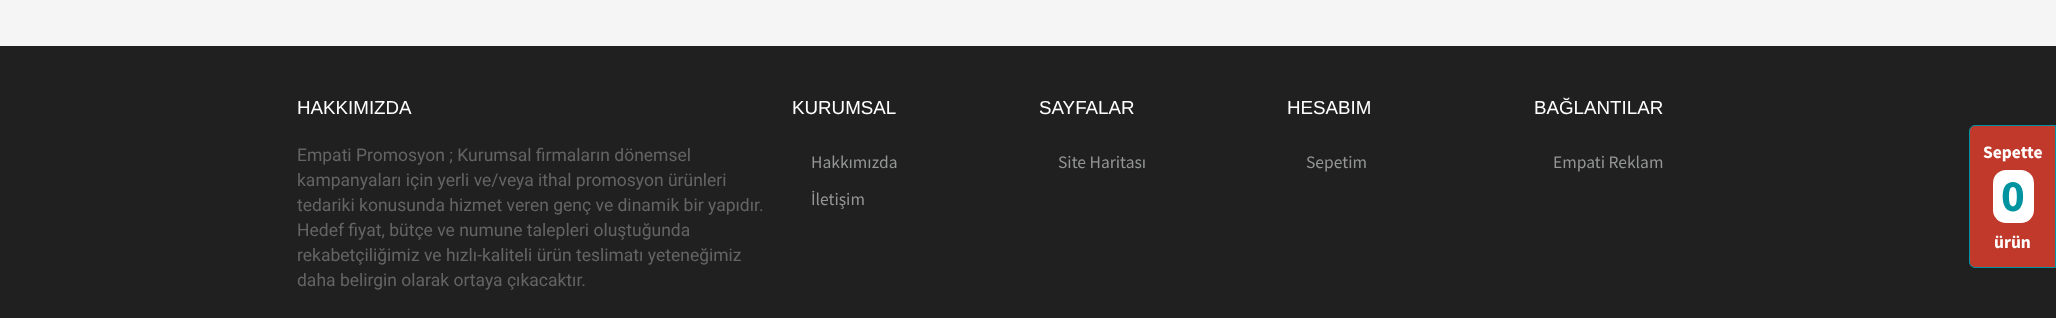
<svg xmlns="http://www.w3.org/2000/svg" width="2056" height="318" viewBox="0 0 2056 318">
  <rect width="100%" height="100%" fill="#f5f5f5"/>
  <path d="M0 46h2056v272H0z" fill="#202020"/>
  <path d="M1975 125.5H2055.5V267.5H1975C1972 267.5 1969.5 265 1969.5 262V131C1969.5 128 1972 125.5 1975 125.5Z" fill="#c0392b" stroke="#0193a4"/>
  <rect x="1993" y="170" width="41" height="53" rx="13" fill="#fff"/>
  <text x="297" y="114" font-family="Liberation Sans" font-size="18.75" fill="#fff">HAKKIMIZDA</text>
  <g font-family="Roboto" font-size="17.5" fill="#646464">
    <text x="297" y="161">Empati Promosyon ; Kurumsal firmaların dönemsel</text>
    <text x="297" y="186">kampanyaları için yerli ve/veya ithal promosyon ürünleri</text>
    <text x="297" y="211">tedariki konusunda hizmet veren genç ve dinamik bir yapıdır.</text>
    <text x="297" y="236">Hedef fiyat, bütçe ve numune talepleri oluştuğunda</text>
    <text x="297" y="261">rekabetçiliğimiz ve hızlı-kaliteli ürün teslimatı yeteneğimiz</text>
    <text x="297" y="286">daha belirgin olarak ortaya çıkacaktır.</text>
  </g>
  <text x="792" y="114" font-family="Liberation Sans" font-size="18.75" fill="#fff">KURUMSAL</text>
  <g font-family="Source Sans Pro" font-size="17.5" fill="#949595">
    <text x="811" y="168">Hakkımızda</text>
    <text x="811" y="205">İletişim</text>
  </g>
  <text x="1039" y="114" font-family="Liberation Sans" font-size="18.75" fill="#fff">SAYFALAR</text>
  <text x="1058" y="168" font-family="Source Sans Pro" font-size="17.5" fill="#949595">Site Haritası</text>
  <text x="1287" y="114" font-family="Liberation Sans" font-size="18.75" fill="#fff">HESABIM</text>
  <text x="1306" y="168" font-family="Source Sans Pro" font-size="17.5" fill="#949595">Sepetim</text>
  <text x="1534" y="114" font-family="Liberation Sans" font-size="18.75" fill="#fff">BAĞLANTILAR</text>
  <text x="1553" y="168" font-family="Source Sans Pro" font-size="17.5" fill="#949595">Empati Reklam</text>
  <text x="1983" y="158" font-family="Source Sans Pro" font-size="17.5" font-weight="bold" fill="#fff">Sepette</text>
  <text x="2001" y="211" font-family="Source Sans Pro" font-size="45" font-weight="bold" fill="#0193a0">0</text>
  <text x="1994" y="248" font-family="Source Sans Pro" font-size="17.5" font-weight="bold" fill="#fff">ürün</text>
</svg>
